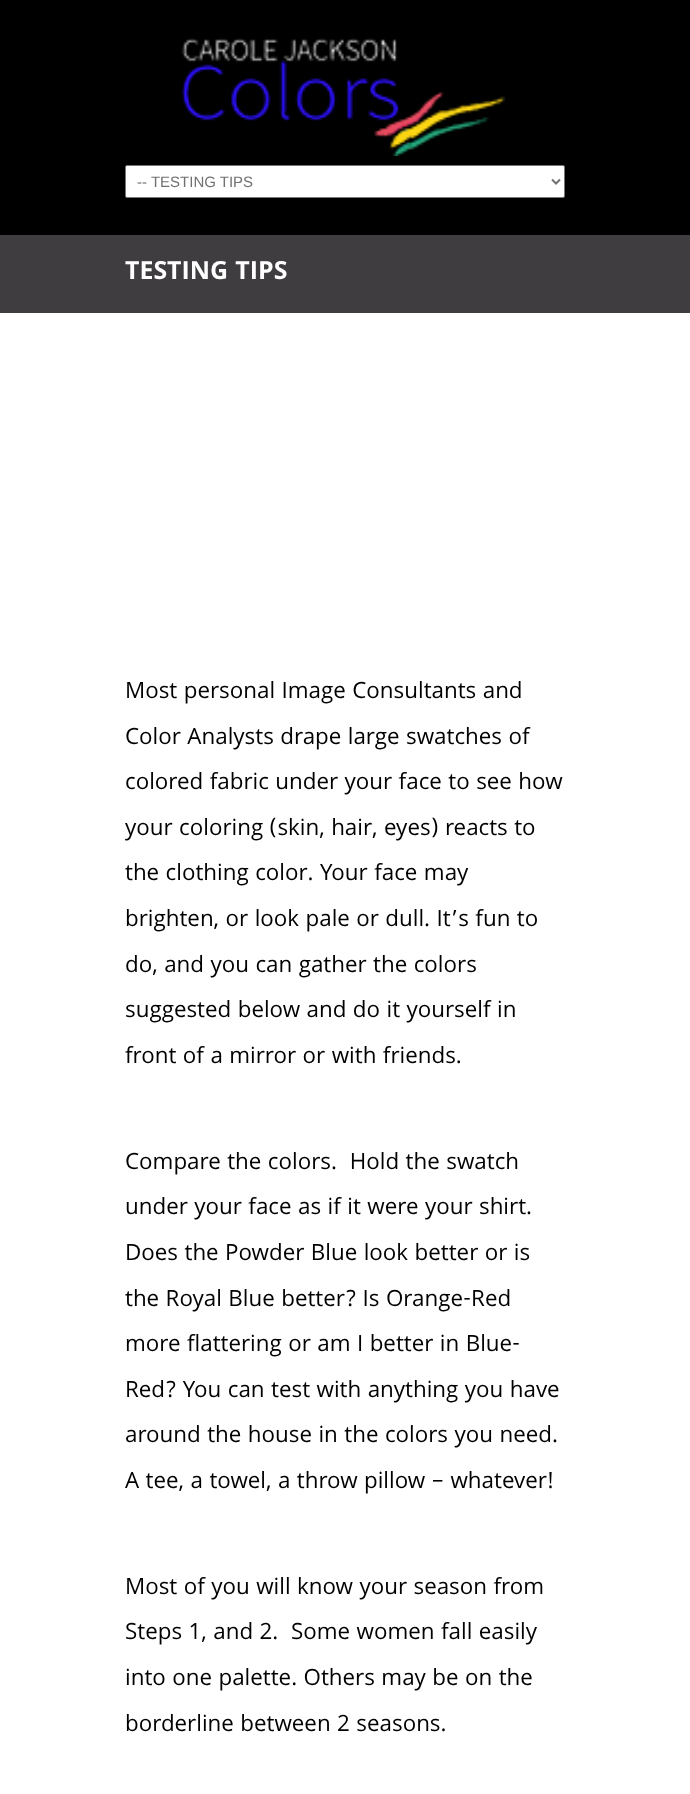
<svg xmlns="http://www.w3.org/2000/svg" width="690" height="1794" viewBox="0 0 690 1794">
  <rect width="100%" height="100%" fill="#000"/>
  <image x="181" y="37" width="325" height="119" href="img/1.png"/>
  <rect x="125.5" y="165.5" width="439" height="32" rx="1.5" fill="#fff" stroke="#767676"/>
  <path d="M552 179.5L556 183.5L560 179.5" fill="none" stroke="#717171" stroke-width="2"/>
  <path d="M0 235h690v78H0z" fill="#403d40"/>
  <path d="M0 313h690v1481H0z" fill="#fff"/>
  <text x="137" y="187" font-family="Liberation Sans" font-size="15" fill="#717171">-- TESTING TIPS</text>
  <text x="125" y="279" font-family="Khula" font-size="26.75" font-weight="bold" fill="#fff">TESTING TIPS</text>
  <g font-family="Khula" font-size="24" fill="#000">
    <text x="125" y="698">Most personal Image Consultants and</text>
    <text x="125" y="744">Color Analysts drape large swatches of</text>
    <text x="125" y="789">colored fabric under your face to see how</text>
    <text x="125" y="835">your coloring (skin, hair, eyes) reacts to</text>
    <text x="125" y="880">the clothing color. Your face may</text>
    <text x="125" y="926">brighten, or look pale or dull. It’s fun to</text>
    <text x="125" y="972">do, and you can gather the colors</text>
    <text x="125" y="1017">suggested below and do it yourself in</text>
    <text x="125" y="1063">front of a mirror or with friends.</text>
    <text x="125" y="1169" xml:space="preserve">Compare the colors.  Hold the swatch</text>
    <text x="125" y="1214">under your face as if it were your shirt.</text>
    <text x="125" y="1260">Does the Powder Blue look better or is</text>
    <text x="125" y="1306">the Royal Blue better? Is Orange-Red</text>
    <text x="125" y="1351">more flattering or am I better in Blue-</text>
    <text x="125" y="1397">Red? You can test with anything you have</text>
    <text x="125" y="1442">around the house in the colors you need.</text>
    <text x="125" y="1488">A tee, a towel, a throw pillow – whatever!</text>
    <text x="125" y="1594">Most of you will know your season from</text>
    <text x="125" y="1639">Steps 1, and 2.</text>
    <text x="291" y="1639">Some women fall easily</text>
    <text x="125" y="1685">into one palette. Others may be on the</text>
    <text x="125" y="1731">borderline between 2 seasons.</text>
  </g>
</svg>
